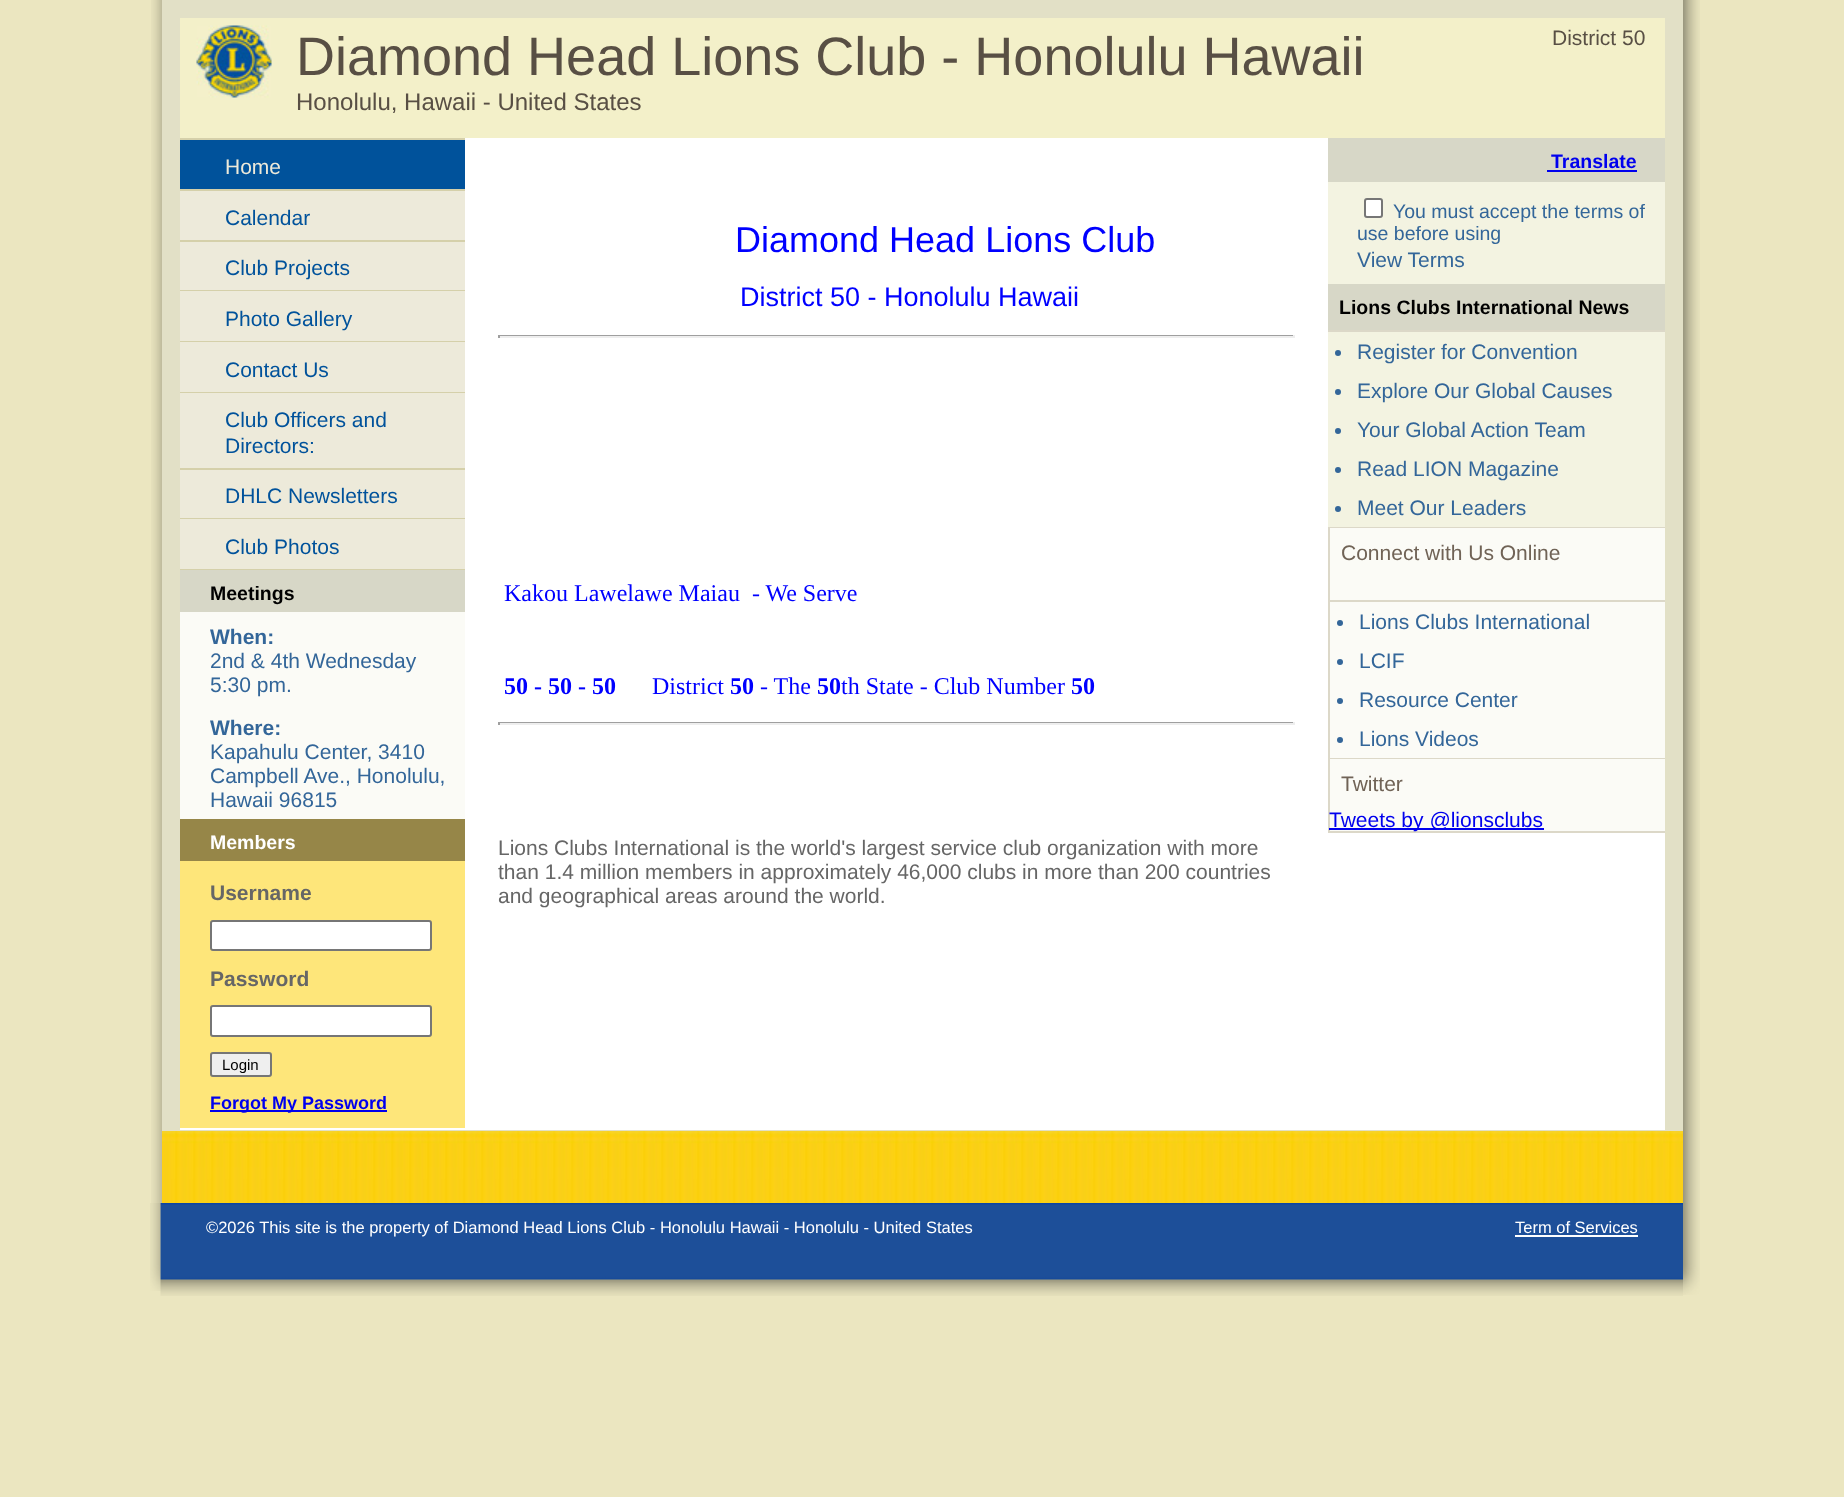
<svg xmlns="http://www.w3.org/2000/svg" width="1844" height="1497" viewBox="0 0 1844 1497">
  <rect width="100%" height="100%" fill="#ebe6c0"/>
  <image x="151" y="0" width="11" height="1203" href="img/1.png"/>
  <path d="M162 0h1521v1131H162z" fill="#e2e0c6"/>
  <image x="162" y="1131" width="1521" height="72" href="img/2.png"/>
  <path d="M180 18h1485v120H180z" fill="#f3f0c9"/>
  <image x="196" y="25" width="76" height="73" href="img/3.png"/>
  <path d="M180 138h1485v992H180z" fill="#fff"/>
  <path d="M180 138h285v2H180z" fill="#d5d0aa"/>
  <path d="M180 189h285v2H180z" fill="#d5d0aa"/>
  <path d="M180 140h285v49H180z" fill="#00529b"/>
  <path d="M180 240h285v2H180z" fill="#d5d0aa"/>
  <path d="M180 191h285v49H180z" fill="#edeada"/>
  <path d="M180 290h285v1H180z" fill="#d5d0aa"/>
  <path d="M180 242h285v48H180z" fill="#edeada"/>
  <path d="M180 341h285v1H180z" fill="#d5d0aa"/>
  <path d="M180 291h285v50H180z" fill="#edeada"/>
  <path d="M180 392h285v1H180z" fill="#d5d0aa"/>
  <path d="M180 342h285v50H180z" fill="#edeada"/>
  <path d="M180 468h285v2H180z" fill="#d5d0aa"/>
  <path d="M180 393h285v75H180z" fill="#edeada"/>
  <path d="M180 518h285v1H180z" fill="#d5d0aa"/>
  <path d="M180 470h285v48H180z" fill="#edeada"/>
  <path d="M180 569h285v1H180z" fill="#d5d0aa"/>
  <path d="M180 519h285v50H180z" fill="#edeada"/>
  <path d="M180 612h285v207H180z" fill="#fbfbf6"/>
  <path d="M180 570h285v42H180z" fill="#d7d7c7"/>
  <path d="M180 861h285v267H180z" fill="#fee67a"/>
  <path d="M180 819h285v42H180z" fill="#968648"/>
  <rect x="211" y="921" width="220" height="29" rx="2" fill="#fff" stroke="#767676" stroke-width="2"/>
  <rect x="211" y="1006" width="220" height="30" rx="2" fill="#fff" stroke="#767676" stroke-width="2"/>
  <rect x="211" y="1053" width="60" height="23" rx="2" fill="#efefef" stroke="#767676" stroke-width="2"/>
  <path d="M210 1110h177v2H210z" fill="#00e"/>
  <path d="M498 335h797v1H498z" fill="#9f9f9f"/>
  <path d="M1293 335h2v3H1293z" fill="#eee"/>
  <path d="M498 336h797v2H498z" fill="#eee"/>
  <path d="M498 335h2v3H498z" fill="#9f9f9f"/>
  <path d="M498 722h797v1H498z" fill="#9f9f9f"/>
  <path d="M1293 722h2v3H1293z" fill="#eee"/>
  <path d="M498 723h797v2H498z" fill="#eee"/>
  <path d="M498 722h2v3H498z" fill="#9f9f9f"/>
  <path d="M1328 182h337v102H1328z" fill="#f3f3e1"/>
  <path d="M1328 138h337v44H1328z" fill="#d7d7c7"/>
  <path d="M1547 170h90v2H1547z" fill="#00e"/>
  <rect x="1365" y="199" width="17" height="18" rx="2" fill="#fff" stroke="#767676" stroke-width="2"/>
  <path d="M1328 332h337v195H1328z" fill="#f3f3e1"/>
  <path d="M1328 284h337v46H1328z" fill="#d7d7c7"/>
  <path d="M1328 330h337v2H1328z" fill="#dcd8c8"/>
  <circle cx="1338" cy="353" r="3" fill="#369"/>
  <circle cx="1338" cy="392" r="3" fill="#369"/>
  <circle cx="1338" cy="431" r="3" fill="#369"/>
  <circle cx="1338" cy="470" r="3" fill="#369"/>
  <circle cx="1338" cy="509" r="3" fill="#369"/>
  <path d="M1328 527h337v1H1328z" fill="#dcd8c8"/>
  <path d="M1330 528h335v72H1330z" fill="#fbfbf6"/>
  <path d="M1328 528h2v72H1328z" fill="#dcd8c8"/>
  <path d="M1328 600h337v2H1328z" fill="#dcd8c8"/>
  <path d="M1330 602h335v156H1330z" fill="#fbfbf6"/>
  <path d="M1328 602h2v156H1328z" fill="#dcd8c8"/>
  <circle cx="1340" cy="623" r="3" fill="#369"/>
  <circle cx="1340" cy="662" r="3" fill="#369"/>
  <circle cx="1340" cy="701" r="3" fill="#369"/>
  <circle cx="1340" cy="740" r="3" fill="#369"/>
  <path d="M1328 758h337v1H1328z" fill="#dcd8c8"/>
  <path d="M1330 759h335v72H1330z" fill="#fbfbf6"/>
  <path d="M1328 759h2v72H1328z" fill="#dcd8c8"/>
  <path d="M1329 828h215v2H1329z" fill="#00e"/>
  <path d="M1328 831h337v2H1328z" fill="#dcd8c8"/>
  <image x="1683" y="0" width="17" height="1203" href="img/4.png"/>
  <image x="160" y="1203" width="1355" height="93" href="img/6.png"/>
  <image x="150" y="1203" width="11" height="88" href="img/5.png"/>
  <image x="1515" y="1203" width="168" height="93" href="img/7.png"/>
  <path d="M1515 1235h123v2H1515z" fill="#fff"/>
  <image x="1683" y="1203" width="17" height="92" href="img/8.png"/>
  <text x="296" y="75" font-family="Liberation Sans" font-size="54" fill="#584f44">Diamond Head Lions Club - Honolulu Hawaii</text>
  <text x="296" y="110" font-family="Liberation Sans" font-size="24" fill="#584f44">Honolulu, Hawaii - United States</text>
  <text x="1552" y="45" font-family="Liberation Sans" font-size="21" fill="#584f44">District 50</text>
  <text x="225" y="174" font-family="Liberation Sans" font-size="21" fill="#edeada">Home</text>
  <g font-family="Liberation Sans" font-size="21" fill="#00529b">
    <text x="225" y="225">Calendar</text>
    <text x="225" y="275">Club Projects</text>
    <text x="225" y="326">Photo Gallery</text>
    <text x="225" y="377">Contact Us</text>
    <text x="225" y="427">Club Officers and</text>
    <text x="225" y="453">Directors:</text>
    <text x="225" y="503">DHLC Newsletters</text>
    <text x="225" y="554">Club Photos</text>
  </g>
  <text x="210" y="600" font-family="Liberation Sans" font-size="19.5" font-weight="bold" fill="#000">Meetings</text>
  <text x="210" y="644" font-family="Liberation Sans" font-size="21" font-weight="bold" fill="#369">When:</text>
  <g font-family="Liberation Sans" font-size="21" fill="#369">
    <text x="210" y="668">2nd &amp; 4th Wednesday</text>
    <text x="210" y="692">5:30 pm.</text>
  </g>
  <text x="210" y="735" font-family="Liberation Sans" font-size="21" font-weight="bold" fill="#369">Where:</text>
  <g font-family="Liberation Sans" font-size="21" fill="#369">
    <text x="210" y="759">Kapahulu Center, 3410</text>
    <text x="210" y="783">Campbell Ave., Honolulu,</text>
    <text x="210" y="807">Hawaii 96815</text>
  </g>
  <text x="210" y="849" font-family="Liberation Sans" font-size="19.5" font-weight="bold" fill="#fff">Members</text>
  <g font-family="Liberation Sans" font-size="21" font-weight="bold" fill="#666">
    <text x="210" y="900">Username</text>
    <text x="210" y="986">Password</text>
  </g>
  <text x="222" y="1070" font-family="Liberation Sans" font-size="15" fill="#000">Login</text>
  <text x="210" y="1109" font-family="Liberation Sans" font-size="18" font-weight="bold" fill="#00e">Forgot My Password</text>
  <text x="735" y="252" font-family="Liberation Sans" font-size="36" fill="#00f">Diamond Head Lions Club</text>
  <text x="740" y="306" font-family="Liberation Sans" font-size="27" fill="#00f">District 50 - Honolulu Hawaii</text>
  <text x="504" y="601" font-family="Liberation Serif" font-size="24" fill="#00f" xml:space="preserve">Kakou Lawelawe Maiau  - We Serve</text>
  <text x="504" y="694" font-family="Liberation Serif" font-size="24" font-weight="bold" fill="#00f">50 - 50 - 50</text>
  <text x="652" y="694" font-family="Liberation Serif" font-size="24" fill="#00f">District</text>
  <text x="730" y="694" font-family="Liberation Serif" font-size="24" font-weight="bold" fill="#00f">50</text>
  <text x="760" y="694" font-family="Liberation Serif" font-size="24" fill="#00f">- The</text>
  <text x="817" y="694" font-family="Liberation Serif" font-size="24" font-weight="bold" fill="#00f">50</text>
  <text x="841" y="694" font-family="Liberation Serif" font-size="24" fill="#00f">th State - Club Number</text>
  <text x="1071" y="694" font-family="Liberation Serif" font-size="24" font-weight="bold" fill="#00f">50</text>
  <g font-family="Liberation Sans" font-size="21" fill="#666">
    <text x="498" y="855">Lions Clubs International is the world's largest service club organization with more</text>
    <text x="498" y="879">than 1.4 million members in approximately 46,000 clubs in more than 200 countries</text>
    <text x="498" y="903">and geographical areas around the world.</text>
  </g>
  <text x="1551" y="168" font-family="Liberation Sans" font-size="19.5" font-weight="bold" fill="#00e">Translate</text>
  <g font-family="Liberation Sans" font-size="19.5" fill="#369">
    <text x="1393" y="218">You must accept the terms of</text>
    <text x="1357" y="240">use before using</text>
  </g>
  <text x="1357" y="267" font-family="Liberation Sans" font-size="21" fill="#369">View Terms</text>
  <text x="1339" y="314" font-family="Liberation Sans" font-size="19.5" font-weight="bold" fill="#000">Lions Clubs International News</text>
  <g font-family="Liberation Sans" font-size="21" fill="#369">
    <text x="1357" y="359">Register for Convention</text>
    <text x="1357" y="398">Explore Our Global Causes</text>
    <text x="1357" y="437">Your Global Action Team</text>
    <text x="1357" y="476">Read LION Magazine</text>
    <text x="1357" y="515">Meet Our Leaders</text>
  </g>
  <text x="1341" y="560" font-family="Liberation Sans" font-size="21" fill="#706356">Connect with Us Online</text>
  <g font-family="Liberation Sans" font-size="21" fill="#369">
    <text x="1359" y="629">Lions Clubs International</text>
    <text x="1359" y="668">LCIF</text>
    <text x="1359" y="707">Resource Center</text>
    <text x="1359" y="746">Lions Videos</text>
  </g>
  <text x="1341" y="791" font-family="Liberation Sans" font-size="21" fill="#706356">Twitter</text>
  <text x="1329" y="827" font-family="Liberation Sans" font-size="21" fill="#00e">Tweets by @lionsclubs</text>
  <g font-family="Liberation Sans" font-size="16.5" fill="#fff">
    <text x="206" y="1233">©2026 This site is the property of Diamond Head Lions Club - Honolulu Hawaii - Honolulu - United States</text>
    <text x="1515" y="1233">Term of Services</text>
  </g>
</svg>
